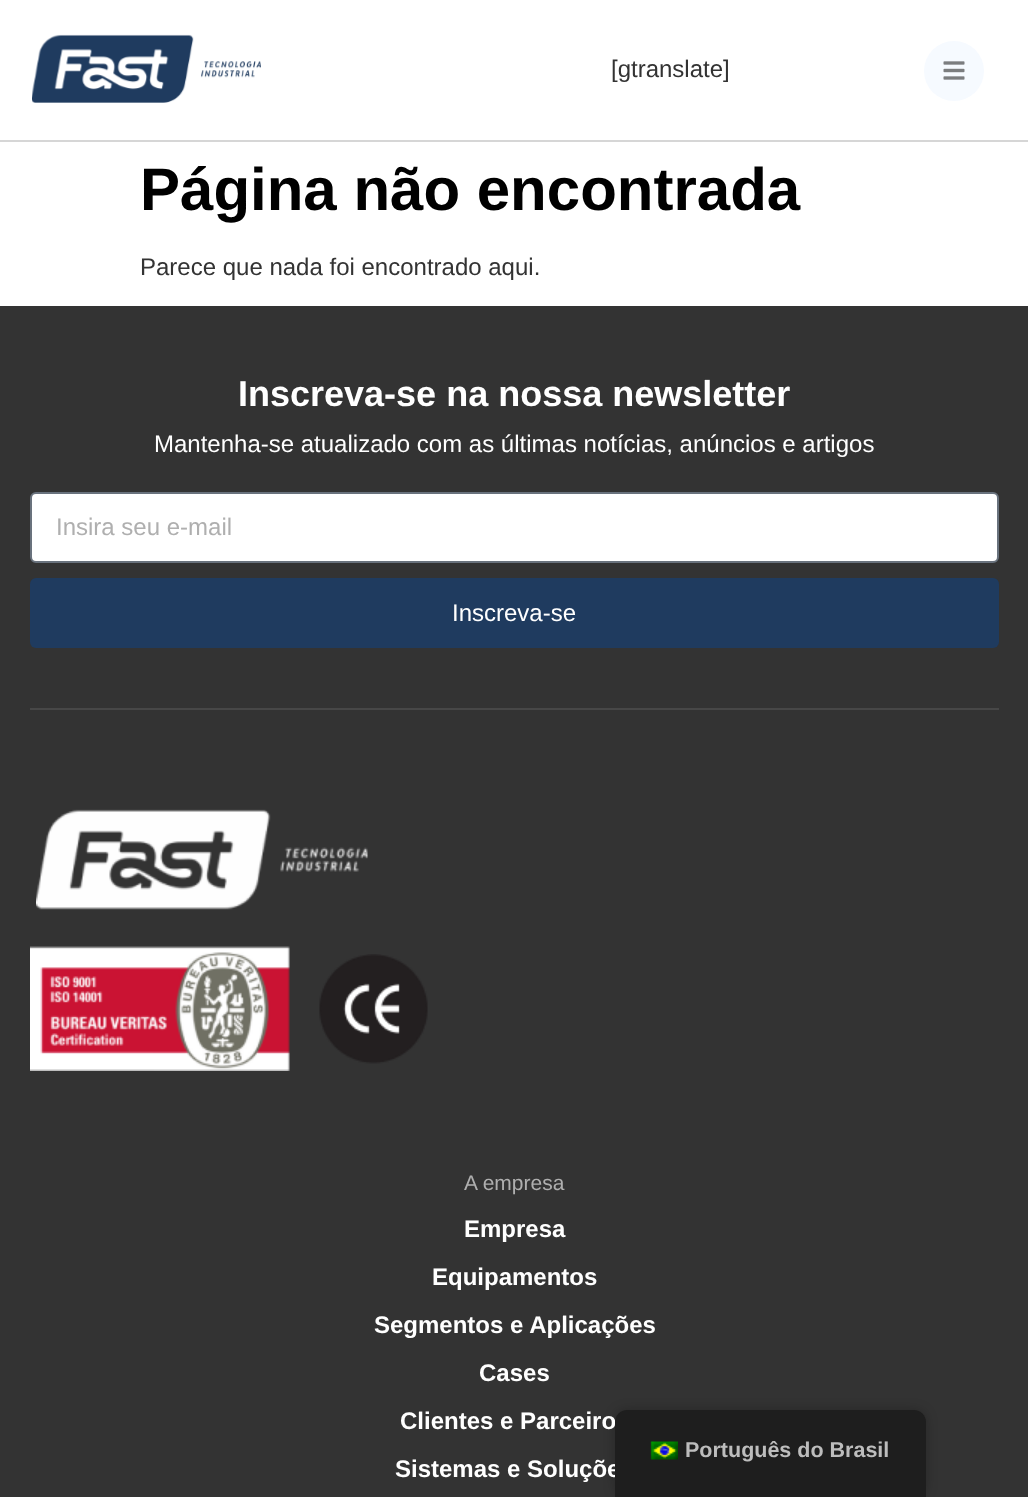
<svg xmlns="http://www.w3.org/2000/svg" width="1028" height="1497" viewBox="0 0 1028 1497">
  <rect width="100%" height="100%" fill="#fff"/>
  <path d="M0 140h1028v2H0z" fill="#d6d6d6"/>
  <image x="32" y="34" width="229" height="69" href="img/1.png"/>
  <circle cx="954" cy="71" r="30" fill="#f6faff"/>
  <image x="943" y="61" width="22" height="19" href="img/2.png"/>
  <path d="M0 306h1028v1191H0z" fill="#333"/>
  <rect x="31" y="493" width="967" height="69" rx="5" fill="#fff" stroke="#69727d" stroke-width="2"/>
  <rect x="30" y="578" width="969" height="70" rx="6" fill="#1f3b5f"/>
  <path d="M30 708h969v2H30z" fill="#474747"/>
  <image x="36" y="809" width="332" height="101" href="img/3.png"/>
  <image x="30" y="946" width="260" height="125" href="img/4.png"/>
  <image x="319" y="954" width="109" height="110" href="img/5.png"/>
  <rect x="615" y="1410" width="311" height="87" rx="12" fill="#00000040" filter="blur(6px)"/>
  <text x="611" y="77" font-family="Liberation Sans" font-size="24" fill="#333">[gtranslate]</text>
  <text x="140" y="210" font-family="Liberation Sans" font-size="60" font-weight="bold" fill="#000">Página não encontrada</text>
  <text x="140" y="275" font-family="Liberation Sans" font-size="24" fill="#333">Parece que nada foi encontrado aqui.</text>
  <text x="238" y="406" font-family="Liberation Sans" font-size="36" font-weight="bold" fill="#fff">Inscreva-se na nossa newsletter</text>
  <text x="154" y="452" font-family="Liberation Sans" font-size="24" fill="#fff">Mantenha-se atualizado com as últimas notícias, anúncios e artigos</text>
  <text x="56" y="535" font-family="Liberation Sans" font-size="24" fill="#afafaf">Insira seu e-mail</text>
  <text x="452" y="621" font-family="Liberation Sans" font-size="24" fill="#fff">Inscreva-se</text>
  <text x="464" y="1190" font-family="Liberation Sans" font-size="21" fill="#afafaf">A empresa</text>
  <g font-family="Liberation Sans" font-size="24" font-weight="bold" fill="#fff">
    <text x="464" y="1237">Empresa</text>
    <text x="432" y="1285">Equipamentos</text>
    <text x="374" y="1333">Segmentos e Aplicações</text>
    <text x="479" y="1381">Cases</text>
    <text x="400" y="1429">Clientes e Parceiro</text>
    <text x="395" y="1477">Sistemas e Soluçõe</text>
  </g>
  <path d="M627 1410H914C920.5 1410 926 1415.5 926 1422V1497H615V1422C615 1415.5 620.5 1410 627 1410Z" fill="#1e1e1e"/>
  <image x="650" y="1441" width="28" height="19" href="img/6.png"/>
  <text x="685" y="1457" font-family="Liberation Sans" font-size="21.5" font-weight="bold" fill="#bdbdbd">Português do Brasil</text>
</svg>
